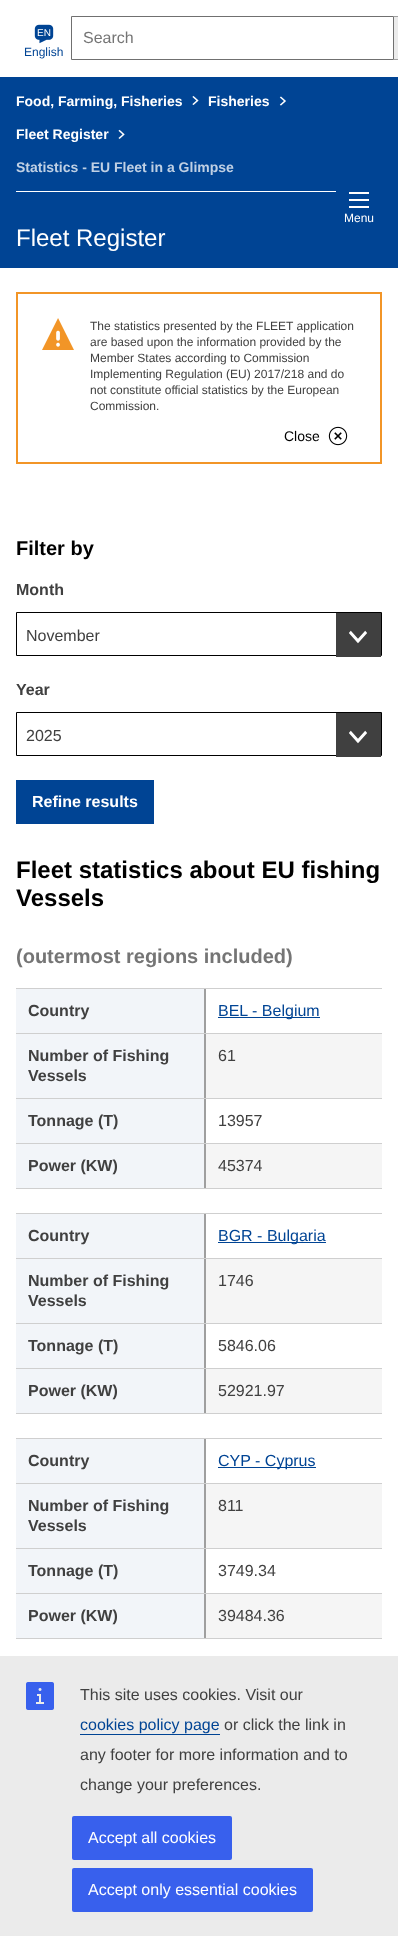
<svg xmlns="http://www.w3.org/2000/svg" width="398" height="1936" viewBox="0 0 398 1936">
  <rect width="100%" height="100%" fill="#fff"/>
  <image x="34" y="24" width="20" height="20" href="img/1.png"/>
  <path d="M71.5 16.5h322v43H71.5z" fill="none" stroke="#707070"/>
  <path d="M394 16h4v44H394z" fill="#ebebeb"/>
  <path d="M394 16h4v1H394z" fill="#9f9f9f"/>
  <path d="M394 59h4v1H394z" fill="#9f9f9f"/>
  <path d="M0 77h398v191H0z" fill="#004494"/>
  <path d="M16 191h320v1H16z" fill="#fff"/>
  <image x="192" y="96" width="7" height="9" href="img/2.png"/>
  <image x="279" y="96" width="7" height="10" href="img/3.png"/>
  <image x="118" y="129" width="7" height="10" href="img/4.png"/>
  <image x="349" y="192" width="20" height="16" href="img/5.png"/>
  <path d="M17 293h364v170H17z" fill="none" stroke="#f29527" stroke-width="2"/>
  <image x="42" y="318" width="32" height="32" href="img/6.png"/>
  <image x="328" y="426" width="20" height="20" href="img/7.png"/>
  <path d="M16.5 612.5h365v43H16.5z" fill="none" stroke="#000"/>
  <path d="M336 613h45v44H336z" fill="#404040"/>
  <image x="349" y="630" width="18" height="14" href="img/8.png"/>
  <path d="M16.5 712.5h365v43H16.5z" fill="none" stroke="#000"/>
  <path d="M336 713h45v44H336z" fill="#404040"/>
  <image x="349" y="730" width="18" height="14" href="img/8.png"/>
  <path d="M16 780h138v44H16z" fill="#004494"/>
  <path d="M16 988h366v1H16z" fill="#cfcfcf"/>
  <path d="M16 989h188v44H16z" fill="#f2f5f9"/>
  <path d="M204 989h2v44H204z" fill="#9f9f9f"/>
  <path d="M218 1017h102v1H218z" fill="#004494"/>
  <path d="M206 1034h176v64H206z" fill="#f5f5f5"/>
  <path d="M16 1033h366v1H16z" fill="#cfcfcf"/>
  <path d="M16 1034h188v64H16z" fill="#f2f5f9"/>
  <path d="M204 1034h2v64H204z" fill="#9f9f9f"/>
  <path d="M16 1098h366v1H16z" fill="#cfcfcf"/>
  <path d="M16 1099h188v44H16z" fill="#f2f5f9"/>
  <path d="M204 1099h2v44H204z" fill="#9f9f9f"/>
  <path d="M206 1144h176v44H206z" fill="#f5f5f5"/>
  <path d="M16 1143h366v1H16z" fill="#cfcfcf"/>
  <path d="M16 1188h366v1H16z" fill="#cfcfcf"/>
  <path d="M16 1144h188v44H16z" fill="#f2f5f9"/>
  <path d="M204 1144h2v44H204z" fill="#9f9f9f"/>
  <path d="M16 1213h366v1H16z" fill="#cfcfcf"/>
  <path d="M16 1214h188v44H16z" fill="#f2f5f9"/>
  <path d="M204 1214h2v44H204z" fill="#9f9f9f"/>
  <path d="M218 1242h108v1H218z" fill="#004494"/>
  <path d="M206 1259h176v64H206z" fill="#f5f5f5"/>
  <path d="M16 1258h366v1H16z" fill="#cfcfcf"/>
  <path d="M16 1259h188v64H16z" fill="#f2f5f9"/>
  <path d="M204 1259h2v64H204z" fill="#9f9f9f"/>
  <path d="M16 1323h366v1H16z" fill="#cfcfcf"/>
  <path d="M16 1324h188v44H16z" fill="#f2f5f9"/>
  <path d="M204 1324h2v44H204z" fill="#9f9f9f"/>
  <path d="M206 1369h176v44H206z" fill="#f5f5f5"/>
  <path d="M16 1368h366v1H16z" fill="#cfcfcf"/>
  <path d="M16 1413h366v1H16z" fill="#cfcfcf"/>
  <path d="M16 1369h188v44H16z" fill="#f2f5f9"/>
  <path d="M204 1369h2v44H204z" fill="#9f9f9f"/>
  <path d="M16 1438h366v1H16z" fill="#cfcfcf"/>
  <path d="M16 1439h188v44H16z" fill="#f2f5f9"/>
  <path d="M204 1439h2v44H204z" fill="#9f9f9f"/>
  <path d="M218 1467h98v1H218z" fill="#004494"/>
  <path d="M206 1484h176v64H206z" fill="#f5f5f5"/>
  <path d="M16 1483h366v1H16z" fill="#cfcfcf"/>
  <path d="M16 1484h188v64H16z" fill="#f2f5f9"/>
  <path d="M204 1484h2v64H204z" fill="#9f9f9f"/>
  <path d="M16 1548h366v1H16z" fill="#cfcfcf"/>
  <path d="M16 1549h188v44H16z" fill="#f2f5f9"/>
  <path d="M204 1549h2v44H204z" fill="#9f9f9f"/>
  <path d="M206 1594h176v44H206z" fill="#f5f5f5"/>
  <path d="M16 1593h366v1H16z" fill="#cfcfcf"/>
  <path d="M16 1638h366v1H16z" fill="#cfcfcf"/>
  <path d="M16 1594h188v44H16z" fill="#f2f5f9"/>
  <path d="M204 1594h2v44H204z" fill="#9f9f9f"/>
  <path d="M0 1656h398v280H0z" fill="#ebebeb"/>
  <image x="26" y="1682" width="28" height="28" href="img/9.png"/>
  <path d="M80 1734h140v1H80z" fill="#004494"/>
  <rect x="72" y="1816" width="160" height="44" rx="2" fill="#3860ed"/>
  <rect x="72" y="1868" width="241" height="44" rx="2" fill="#3860ed"/>
  <text x="37" y="36" font-family="Liberation Sans" font-size="10" fill="#fff">EN</text>
  <text x="24" y="56" font-family="Liberation Sans" font-size="12" fill="#004494">English</text>
  <text x="83" y="43" font-family="Liberation Sans" font-size="16" fill="#757575">Search</text>
  <g font-family="Liberation Sans" font-size="14" font-weight="bold" fill="#fff">
    <text x="16" y="106">Food, Farming, Fisheries</text>
    <text x="208" y="106">Fisheries</text>
    <text x="16" y="139">Fleet Register</text>
  </g>
  <text x="16" y="172" font-family="Liberation Sans" font-size="14" font-weight="bold" fill="#bfd0e4">Statistics - EU Fleet in a Glimpse</text>
  <text x="344" y="222" font-family="Liberation Sans" font-size="12" fill="#fff">Menu</text>
  <text x="16" y="246" font-family="Liberation Sans" font-size="24" fill="#fff">Fleet Register</text>
  <g font-family="Liberation Sans" font-size="12" fill="#404040">
    <text x="90" y="330">The statistics presented by the FLEET application</text>
    <text x="90" y="346">are based upon the information provided by the</text>
    <text x="90" y="362">Member States according to Commission</text>
    <text x="90" y="378">Implementing Regulation (EU) 2017/218 and do</text>
    <text x="90" y="394">not constitute official statistics by the European</text>
    <text x="90" y="410">Commission.</text>
  </g>
  <text x="284" y="441" font-family="Liberation Sans" font-size="14" fill="#000">Close</text>
  <text x="16" y="555" font-family="Liberation Sans" font-size="20" font-weight="bold" fill="#000">Filter by</text>
  <text x="16" y="595" font-family="Liberation Sans" font-size="16" font-weight="bold" fill="#404040">Month</text>
  <text x="26" y="641" font-family="Liberation Sans" font-size="16" fill="#404040">November</text>
  <text x="16" y="695" font-family="Liberation Sans" font-size="16" font-weight="bold" fill="#404040">Year</text>
  <text x="26" y="741" font-family="Liberation Sans" font-size="16" fill="#404040">2025</text>
  <text x="32" y="807" font-family="Liberation Sans" font-size="16" font-weight="bold" fill="#fff">Refine results</text>
  <g font-family="Liberation Sans" font-size="24" font-weight="bold" fill="#000">
    <text x="16" y="878">Fleet statistics about EU fishing</text>
    <text x="16" y="906">Vessels</text>
  </g>
  <text x="16" y="963" font-family="Liberation Sans" font-size="20" font-weight="bold" fill="#757575">(outermost regions included)</text>
  <text x="28" y="1016" font-family="Liberation Sans" font-size="16" font-weight="bold" fill="#404040">Country</text>
  <text x="218" y="1016" font-family="Liberation Sans" font-size="16" fill="#004494">BEL - Belgium</text>
  <g font-family="Liberation Sans" font-size="16" font-weight="bold" fill="#404040">
    <text x="28" y="1061">Number of Fishing</text>
    <text x="28" y="1081">Vessels</text>
  </g>
  <text x="218" y="1061" font-family="Liberation Sans" font-size="16" fill="#404040">61</text>
  <text x="28" y="1126" font-family="Liberation Sans" font-size="16" font-weight="bold" fill="#404040">Tonnage (T)</text>
  <text x="218" y="1126" font-family="Liberation Sans" font-size="16" fill="#404040">13957</text>
  <text x="28" y="1171" font-family="Liberation Sans" font-size="16" font-weight="bold" fill="#404040">Power (KW)</text>
  <text x="218" y="1171" font-family="Liberation Sans" font-size="16" fill="#404040">45374</text>
  <text x="28" y="1241" font-family="Liberation Sans" font-size="16" font-weight="bold" fill="#404040">Country</text>
  <text x="218" y="1241" font-family="Liberation Sans" font-size="16" fill="#004494">BGR - Bulgaria</text>
  <g font-family="Liberation Sans" font-size="16" font-weight="bold" fill="#404040">
    <text x="28" y="1286">Number of Fishing</text>
    <text x="28" y="1306">Vessels</text>
  </g>
  <text x="218" y="1286" font-family="Liberation Sans" font-size="16" fill="#404040">1746</text>
  <text x="28" y="1351" font-family="Liberation Sans" font-size="16" font-weight="bold" fill="#404040">Tonnage (T)</text>
  <text x="218" y="1351" font-family="Liberation Sans" font-size="16" fill="#404040">5846.06</text>
  <text x="28" y="1396" font-family="Liberation Sans" font-size="16" font-weight="bold" fill="#404040">Power (KW)</text>
  <text x="218" y="1396" font-family="Liberation Sans" font-size="16" fill="#404040">52921.97</text>
  <text x="28" y="1466" font-family="Liberation Sans" font-size="16" font-weight="bold" fill="#404040">Country</text>
  <text x="218" y="1466" font-family="Liberation Sans" font-size="16" fill="#004494">CYP - Cyprus</text>
  <g font-family="Liberation Sans" font-size="16" font-weight="bold" fill="#404040">
    <text x="28" y="1511">Number of Fishing</text>
    <text x="28" y="1531">Vessels</text>
  </g>
  <text x="218" y="1511" font-family="Liberation Sans" font-size="16" fill="#404040">811</text>
  <text x="28" y="1576" font-family="Liberation Sans" font-size="16" font-weight="bold" fill="#404040">Tonnage (T)</text>
  <text x="218" y="1576" font-family="Liberation Sans" font-size="16" fill="#404040">3749.34</text>
  <text x="28" y="1621" font-family="Liberation Sans" font-size="16" font-weight="bold" fill="#404040">Power (KW)</text>
  <g font-family="Liberation Sans" font-size="16" fill="#404040">
    <text x="218" y="1621">39484.36</text>
    <text x="80" y="1700">This site uses cookies. Visit our</text>
  </g>
  <text x="80" y="1730" font-family="Liberation Sans" font-size="16" fill="#004494">cookies policy page</text>
  <g font-family="Liberation Sans" font-size="16" fill="#404040">
    <text x="224" y="1730">or click the link in</text>
    <text x="80" y="1760">any footer for more information and to</text>
    <text x="80" y="1790">change your preferences.</text>
  </g>
  <g font-family="Liberation Sans" font-size="16" fill="#fff">
    <text x="88" y="1843">Accept all cookies</text>
    <text x="88" y="1895">Accept only essential cookies</text>
  </g>
</svg>
